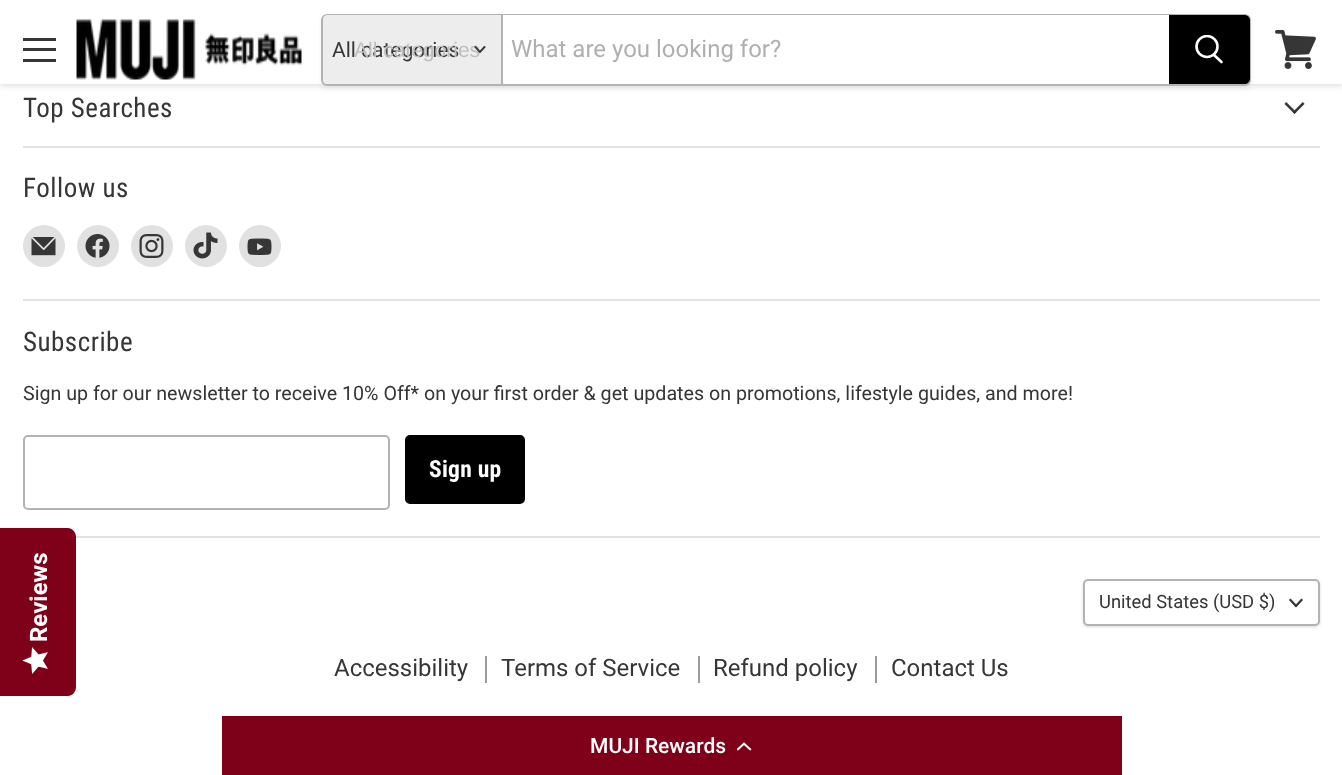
<svg xmlns="http://www.w3.org/2000/svg" width="1342" height="775" viewBox="0 0 1342 775">
  <defs>
    <clipPath id="clip1"><path d="M1194 35h30v31H1194z"/></clipPath>
  </defs>
  <rect width="100%" height="100%" fill="#fff"/>
  <path d="M0 2h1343v84H0z" fill="#80808040" filter="blur(3px)"/>
  <path d="M0 0h1342v84H0z" fill="#fff"/>
  <path d="M23 38h33v3H23z" fill="#363636"/>
  <path d="M23 48h33v3H23z" fill="#363636"/>
  <path d="M23 59h33v3H23z" fill="#363636"/>
  <image x="76" y="19" width="226" height="61" href="img/1.png"/>
  <rect x="321" y="17" width="930" height="72" rx="6" fill="#8080801c" filter="blur(2px)"/>
  <rect x="322" y="15" width="928" height="70" rx="5" fill="none" stroke="#b3b3b3" stroke-width="2"/>
  <path d="M328 15H501V84H328C325 84 323 82 323 79V20C323 17 325 15 328 15Z" fill="#ededed"/>
  <path d="M503 15h666v69H503z" fill="#fff"/>
  <path d="M501 15h2v69H501z" fill="#b3b3b3"/>
  <path d="M1170 16H1245C1247 16 1249 18 1249 20V79C1249 81 1247 83 1245 83H1170Z" fill="#000" stroke="#000" stroke-width="2"/>
  <path d="M1221.5 62L1214 55" fill="none" stroke="#fff" stroke-width="2.6" stroke-linecap="round"/>
  <g clip-path="url(#clip1)">
    <circle cx="1207" cy="46.5" r="10.5" fill="none" stroke="#fff" stroke-width="2.6"/>
  </g>
  <image x="1275" y="30" width="41" height="39" href="img/2.png"/>
  <path d="M23 146h1297v2H23z" fill="#e1e1e1"/>
  <image x="1284" y="102" width="21" height="12" href="img/3.png"/>
  <path d="M23 299h1297v2H23z" fill="#e1e1e1"/>
  <circle cx="44" cy="246" r="21" fill="#e1e1e1"/>
  <image x="31" y="237" width="25" height="19" href="img/4.png"/>
  <circle cx="98" cy="246" r="21" fill="#e1e1e1"/>
  <image x="85" y="234" width="25" height="24" href="img/5.png"/>
  <circle cx="152" cy="246" r="21" fill="#e1e1e1"/>
  <image x="139" y="234" width="25" height="24" href="img/6.png"/>
  <circle cx="206" cy="246" r="21" fill="#e1e1e1"/>
  <image x="193" y="232" width="25" height="27" href="img/7.png"/>
  <circle cx="260" cy="246" r="21" fill="#e1e1e1"/>
  <image x="247" y="238" width="25" height="17" href="img/8.png"/>
  <path d="M75 536h1245v2H75z" fill="#e1e1e1"/>
  <rect x="24" y="436" width="365" height="73" rx="4" fill="none" stroke="#b3b3b3" stroke-width="2"/>
  <rect x="406" y="436" width="118" height="67" rx="4" fill="#000" stroke="#000" stroke-width="2"/>
  <rect x="1083" y="581" width="237" height="46" rx="5" fill="#00000026" filter="blur(1.5px)"/>
  <rect x="1084" y="580" width="235" height="45" rx="4" fill="#fff" stroke="#b3b3b3" stroke-width="2"/>
  <path d="M1296 606L1301.5 600M1296 606L1290.5 600" fill="none" stroke="#363636" stroke-width="2.3" stroke-linecap="square"/>
  <path d="M485 656h2v27H485z" fill="#9b9b9b"/>
  <path d="M698 656h2v27H698z" fill="#9b9b9b"/>
  <path d="M875 656h2v27H875z" fill="#9b9b9b"/>
  <path d="M0 696V528H68C72 528 76 532 76 537V687C76 692 72 696 68 696Z" fill="#7f0019"/>
  <image x="22" y="647" width="26" height="27" href="img/9.png"/>
  <path d="M222 716h900v59H222z" fill="#7f0019"/>
  <image x="737" y="742" width="15" height="9" href="img/10.png"/>
  <text x="332" y="57" font-family="Roboto" font-size="21" fill="#363636">All categories</text>
  <text x="354" y="57" font-family="Liberation Sans" font-size="21" fill="#bfbfbf">All categories</text>
  <path d="M480 52L484.5 47M480 52L475.5 47" fill="none" stroke="#363636" stroke-width="1.9" stroke-linecap="square"/>
  <text x="511" y="57" font-family="Roboto" font-size="24" fill="#afafaf">What are you looking for?</text>
  <g font-family="Roboto Condensed" font-size="27" letter-spacing="0.5" fill="#363636">
    <text x="23" y="117">Top Searches</text>
    <text x="23" y="197">Follow us</text>
    <text x="23" y="351">Subscribe</text>
  </g>
  <text x="23" y="400" font-family="Roboto" font-size="19.7" fill="#363636">Sign up for our newsletter to receive 10% Off* on your first order &amp; get updates on promotions, lifestyle guides, and more!</text>
  <text x="429" y="477" font-family="Roboto Condensed" font-size="23.5" font-weight="bold" letter-spacing="0.25" fill="#fff">Sign up</text>
  <text x="1099" y="608" font-family="Roboto" font-size="18.4" fill="#363636">United States (USD $)</text>
  <g font-family="Roboto" font-size="24" fill="#363636">
    <text x="334" y="676">Accessibility</text>
    <text x="501" y="676">Terms of Service</text>
    <text x="713" y="676">Refund policy</text>
    <text x="891" y="676">Contact Us</text>
  </g>
  <text x="47" y="642" transform="rotate(-90 47 642)" font-family="Roboto" font-size="24" font-weight="bold" fill="#fff">Reviews</text>
  <text x="590" y="753" font-family="Roboto" font-size="21" font-weight="500" fill="#fff">MUJI Rewards</text>
</svg>
